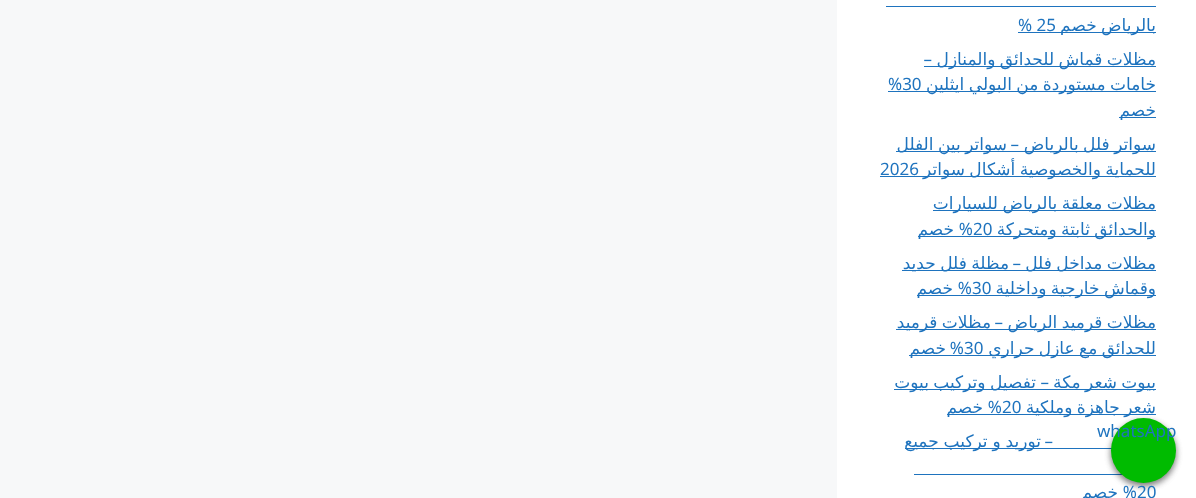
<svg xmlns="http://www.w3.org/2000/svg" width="1196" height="498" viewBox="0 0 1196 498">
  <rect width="100%" height="100%" fill="#f7f8f9"/>
  <path d="M837 0h359v498H837z" fill="#fff"/>
  <path d="M1018 32h138v1H1018z" fill="#1e73be"/>
  <path d="M886 6h270v1H886z" fill="#1e73be"/>
  <path d="M924 66h232v1H924z" fill="#1e73be"/>
  <path d="M888 91h268v1H888z" fill="#1e73be"/>
  <path d="M1119 117h37v1H1119z" fill="#1e73be"/>
  <path d="M896 151h260v1H896z" fill="#1e73be"/>
  <path d="M880 176h276v1H880z" fill="#1e73be"/>
  <path d="M933 210h223v1H933z" fill="#1e73be"/>
  <path d="M918 236h238v1H918z" fill="#1e73be"/>
  <path d="M902 270h254v1H902z" fill="#1e73be"/>
  <path d="M917 295h239v1H917z" fill="#1e73be"/>
  <path d="M896 329h260v1H896z" fill="#1e73be"/>
  <path d="M909 355h247v1H909z" fill="#1e73be"/>
  <path d="M894 389h262v1H894z" fill="#1e73be"/>
  <path d="M947 414h209v1H947z" fill="#1e73be"/>
  <path d="M905 448h207v1H905z" fill="#1e73be"/>
  <path d="M914 474h209v1H914z" fill="#1e73be"/>
  <rect x="1111" y="421" width="65" height="65" rx="32.5" fill="#0000004d" filter="blur(3px)"/>
  <rect x="1111" y="421" width="65" height="65" rx="32.5" fill="#0000004d" filter="blur(3px)"/>
  <circle cx="1143.5" cy="450.5" r="32.5" fill="#0b0"/>
  <text x="1156" y="31" word-spacing="-1" font-family="DejaVu Sans" font-size="17" direction="rtl" fill="#1e73be">بالرياض خصم</text>
  <text x="1018" y="31" font-family="Noto Sans" font-size="17" fill="#1e73be">% 25</text>
  <text x="1156" y="65" word-spacing="-1" font-family="DejaVu Sans" font-size="17" direction="rtl" fill="#1e73be">مظلات قماش للحدائق والمنازل</text>
  <text x="932" y="65" font-family="Noto Sans" font-size="17" direction="rtl" fill="#1e73be">–</text>
  <text x="1156" y="90" word-spacing="-1" font-family="DejaVu Sans" font-size="17" direction="rtl" fill="#1e73be">خامات مستوردة من البولي ايثلين</text>
  <text x="888" y="90" font-family="Noto Sans" font-size="17" fill="#1e73be">%30</text>
  <g font-family="DejaVu Sans" font-size="17" direction="rtl" fill="#1e73be">
    <text x="1156" y="116">خصم</text>
    <text x="1156" y="150" word-spacing="-1">سواتر فلل بالرياض</text>
  </g>
  <text x="1019" y="150" font-family="Noto Sans" font-size="17" direction="rtl" fill="#1e73be">–</text>
  <g font-family="DejaVu Sans" font-size="17" direction="rtl" fill="#1e73be">
    <text x="1007" y="150" word-spacing="-1">سواتر بين الفلل</text>
    <text x="1156" y="175" word-spacing="-1">للحماية والخصوصية أشكال سواتر</text>
  </g>
  <text x="880" y="175" font-family="Noto Sans" font-size="17" fill="#1e73be">2026</text>
  <g font-family="DejaVu Sans" font-size="17" direction="rtl" fill="#1e73be">
    <text x="1156" y="209" word-spacing="-1">مظلات معلقة بالرياض للسيارات</text>
    <text x="1156" y="235" word-spacing="-1">والحدائق ثابتة ومتحركة</text>
  </g>
  <text x="973" y="235" font-family="Noto Sans" font-size="17" fill="#1e73be">20</text>
  <text x="973" y="235" font-family="Noto Sans" font-size="17" direction="rtl" fill="#1e73be">%</text>
  <g font-family="DejaVu Sans" font-size="17" direction="rtl" fill="#1e73be">
    <text x="954" y="235">خصم</text>
    <text x="1156" y="269" word-spacing="-1">مظلات مداخل فلل</text>
  </g>
  <text x="1021" y="269" font-family="Noto Sans" font-size="17" direction="rtl" fill="#1e73be">–</text>
  <g font-family="DejaVu Sans" font-size="17" direction="rtl" fill="#1e73be">
    <text x="1009" y="269" word-spacing="-1">مظلة فلل حديد</text>
    <text x="1156" y="294" word-spacing="-1">وقماش خارجية وداخلية</text>
  </g>
  <text x="972" y="294" font-family="Noto Sans" font-size="17" fill="#1e73be">30</text>
  <text x="972" y="294" font-family="Noto Sans" font-size="17" direction="rtl" fill="#1e73be">%</text>
  <g font-family="DejaVu Sans" font-size="17" direction="rtl" fill="#1e73be">
    <text x="953" y="294">خصم</text>
    <text x="1156" y="328" word-spacing="-1">مظلات قرميد الرياض</text>
  </g>
  <text x="1003" y="328" font-family="Noto Sans" font-size="17" direction="rtl" fill="#1e73be">–</text>
  <g font-family="DejaVu Sans" font-size="17" direction="rtl" fill="#1e73be">
    <text x="991" y="328" word-spacing="-1">مظلات قرميد</text>
    <text x="1156" y="354" word-spacing="-1">للحدائق مع عازل حراري</text>
  </g>
  <text x="964" y="354" font-family="Noto Sans" font-size="17" fill="#1e73be">30</text>
  <text x="964" y="354" font-family="Noto Sans" font-size="17" direction="rtl" fill="#1e73be">%</text>
  <g font-family="DejaVu Sans" font-size="17" direction="rtl" fill="#1e73be">
    <text x="946" y="354">خصم</text>
    <text x="1156" y="388" word-spacing="-1">بيوت شعر مكة</text>
  </g>
  <text x="1049" y="388" font-family="Noto Sans" font-size="17" direction="rtl" fill="#1e73be">–</text>
  <g font-family="DejaVu Sans" font-size="17" direction="rtl" fill="#1e73be">
    <text x="1036" y="388" word-spacing="-1">تفصيل وتركيب بيوت</text>
    <text x="1156" y="413" word-spacing="-1">شعر جاهزة وملكية</text>
  </g>
  <text x="1002" y="413" font-family="Noto Sans" font-size="17" fill="#1e73be">20</text>
  <text x="1002" y="413" font-family="Noto Sans" font-size="17" direction="rtl" fill="#1e73be">%</text>
  <text x="983" y="413" font-family="DejaVu Sans" font-size="17" direction="rtl" fill="#1e73be">خصم</text>
  <text x="1053" y="447" font-family="Noto Sans" font-size="17" direction="rtl" fill="#1e73be">–</text>
  <text x="1041" y="447" word-spacing="-0.5" font-family="DejaVu Sans" font-size="17" direction="rtl" fill="#1e73be">توريد و تركيب جميع</text>
  <text x="1137" y="498" font-family="Noto Sans" font-size="17" fill="#1e73be">20</text>
  <text x="1137" y="498" font-family="Noto Sans" font-size="17" direction="rtl" fill="#1e73be">%</text>
  <text x="1118" y="498" font-family="DejaVu Sans" font-size="17" direction="rtl" fill="#1e73be">خصم</text>
  <text x="1097" y="437" font-family="Noto Sans" font-size="17" fill="#1e73be">whatsApp</text>
</svg>
